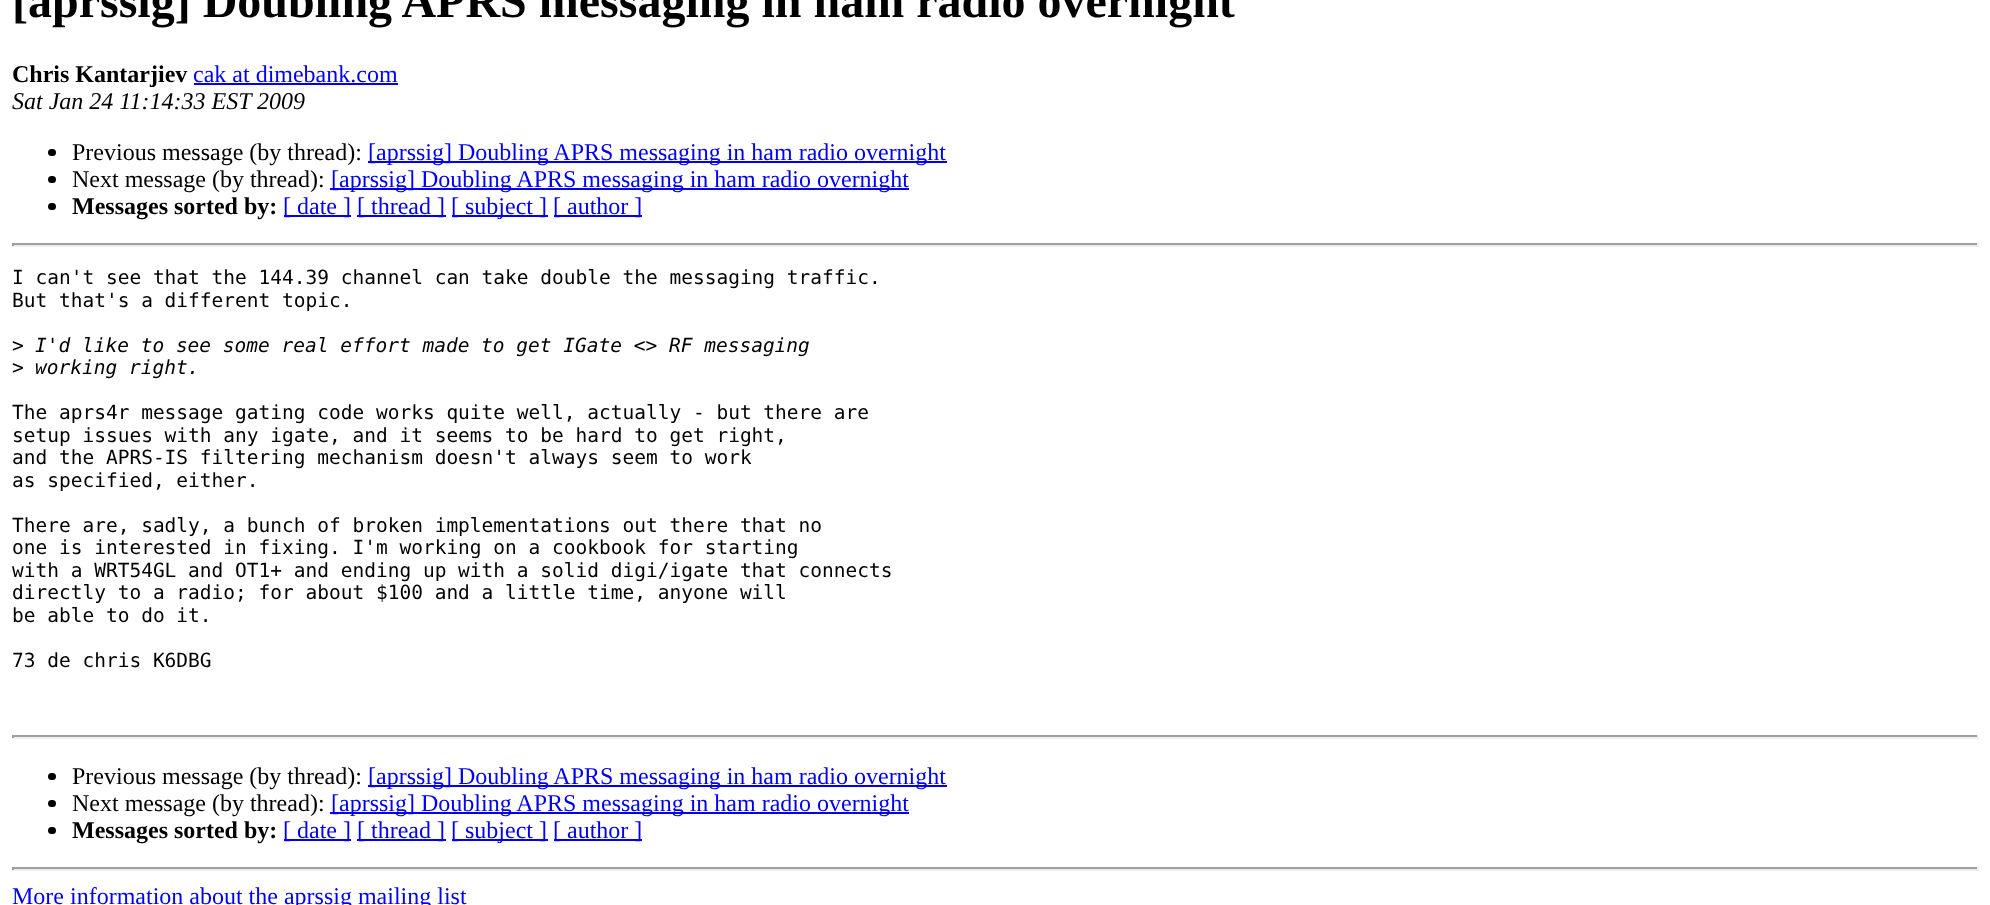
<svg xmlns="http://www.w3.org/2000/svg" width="1990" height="905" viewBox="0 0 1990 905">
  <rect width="100%" height="100%" fill="#fff"/>
  <path d="M194 83h204v2H194z" fill="#00e"/>
  <rect x="48" y="149" width="8" height="7" rx="3.5" fill="#000"/>
  <path d="M368 161h579v2H368z" fill="#00e"/>
  <rect x="48" y="176" width="8" height="7" rx="3.5" fill="#000"/>
  <path d="M330 188h579v2H330z" fill="#00e"/>
  <rect x="48" y="203" width="8" height="7" rx="3.5" fill="#000"/>
  <path d="M284 215h67v2H284z" fill="#00e"/>
  <path d="M357 215h89v2H357z" fill="#00e"/>
  <path d="M452 215h96v2H452z" fill="#00e"/>
  <path d="M554 215h88v2H554z" fill="#00e"/>
  <path d="M12 243h1967v2H12z" fill="#9f9f9f"/>
  <path d="M1977 243h2v3H1977z" fill="#eee"/>
  <path d="M12 245h1967v2H12z" fill="#eee"/>
  <path d="M12 243h2v3H12z" fill="#9f9f9f"/>
  <path d="M12 735h1967v2H12z" fill="#9f9f9f"/>
  <path d="M1977 735h2v3H1977z" fill="#eee"/>
  <path d="M12 737h1967v2H12z" fill="#eee"/>
  <path d="M12 735h2v3H12z" fill="#9f9f9f"/>
  <rect x="48" y="773" width="8" height="7" rx="3.5" fill="#000"/>
  <path d="M368 785h579v2H368z" fill="#00e"/>
  <rect x="48" y="800" width="8" height="7" rx="3.5" fill="#000"/>
  <path d="M330 812h579v2H330z" fill="#00e"/>
  <rect x="48" y="827" width="8" height="7" rx="3.5" fill="#000"/>
  <path d="M284 839h67v2H284z" fill="#00e"/>
  <path d="M357 839h89v2H357z" fill="#00e"/>
  <path d="M452 839h96v2H452z" fill="#00e"/>
  <path d="M554 839h88v2H554z" fill="#00e"/>
  <path d="M12 867h1967v2H12z" fill="#9f9f9f"/>
  <path d="M1977 867h2v3H1977z" fill="#eee"/>
  <path d="M12 869h1967v2H12z" fill="#eee"/>
  <path d="M12 867h2v3H12z" fill="#9f9f9f"/>
  <text x="12" y="17" font-family="Liberation Serif" font-size="48" font-weight="bold" fill="#000">[aprssig] Doubling APRS messaging in ham radio overnight</text>
  <text x="12" y="82" font-family="Liberation Serif" font-size="24" font-weight="bold" fill="#000">Chris Kantarjiev</text>
  <text x="193" y="82" font-family="Liberation Serif" font-size="24" fill="#00e">cak at dimebank.com</text>
  <text x="12" y="109" font-family="Liberation Serif" font-size="24" font-style="italic" fill="#000">Sat Jan 24 11:14:33 EST 2009</text>
  <text x="72" y="160" font-family="Liberation Serif" font-size="24" fill="#000">Previous message (by thread):</text>
  <text x="368" y="160" font-family="Liberation Serif" font-size="24" fill="#00e">[aprssig] Doubling APRS messaging in ham radio overnight</text>
  <text x="72" y="187" font-family="Liberation Serif" font-size="24" fill="#000">Next message (by thread):</text>
  <text x="331" y="187" font-family="Liberation Serif" font-size="24" fill="#00e">[aprssig] Doubling APRS messaging in ham radio overnight</text>
  <text x="72" y="214" font-family="Liberation Serif" font-size="24" font-weight="bold" fill="#000">Messages sorted by:</text>
  <g font-family="Liberation Serif" font-size="24" fill="#00e">
    <text x="283" y="214">[ date ]</text>
    <text x="357" y="214">[ thread ]</text>
    <text x="451" y="214">[ subject ]</text>
    <text x="553" y="214">[ author ]</text>
  </g>
  <g font-family="DejaVu Sans Mono" font-size="19.5" fill="#000">
    <text x="12" y="284">I can't see that the 144.39 channel can take double the messaging traffic.</text>
    <text x="12" y="307">But that's a different topic.</text>
    <text x="12" y="352">&gt;</text>
  </g>
  <text x="35" y="352" font-family="DejaVu Sans Mono" font-size="19.5" font-style="italic" fill="#000">I'd like to see some real effort made to get IGate &lt;&gt; RF messaging</text>
  <text x="12" y="374" font-family="DejaVu Sans Mono" font-size="19.5" fill="#000">&gt;</text>
  <text x="35" y="374" font-family="DejaVu Sans Mono" font-size="19.5" font-style="italic" fill="#000">working right.</text>
  <g font-family="DejaVu Sans Mono" font-size="19.5" fill="#000">
    <text x="12" y="419">The aprs4r message gating code works quite well, actually - but there are</text>
    <text x="12" y="442">setup issues with any igate, and it seems to be hard to get right,</text>
    <text x="12" y="464">and the APRS-IS filtering mechanism doesn't always seem to work</text>
    <text x="12" y="487">as specified, either.</text>
    <text x="12" y="532">There are, sadly, a bunch of broken implementations out there that no</text>
    <text x="12" y="554">one is interested in fixing. I'm working on a cookbook for starting</text>
    <text x="12" y="577">with a WRT54GL and OT1+ and ending up with a solid digi/igate that connects</text>
    <text x="12" y="599">directly to a radio; for about $100 and a little time, anyone will</text>
    <text x="12" y="622">be able to do it.</text>
    <text x="12" y="667">73 de chris K6DBG</text>
  </g>
  <text x="72" y="784" font-family="Liberation Serif" font-size="24" fill="#000">Previous message (by thread):</text>
  <text x="368" y="784" font-family="Liberation Serif" font-size="24" fill="#00e">[aprssig] Doubling APRS messaging in ham radio overnight</text>
  <text x="72" y="811" font-family="Liberation Serif" font-size="24" fill="#000">Next message (by thread):</text>
  <text x="331" y="811" font-family="Liberation Serif" font-size="24" fill="#00e">[aprssig] Doubling APRS messaging in ham radio overnight</text>
  <text x="72" y="838" font-family="Liberation Serif" font-size="24" font-weight="bold" fill="#000">Messages sorted by:</text>
  <g font-family="Liberation Serif" font-size="24" fill="#00e">
    <text x="283" y="838">[ date ]</text>
    <text x="357" y="838">[ thread ]</text>
    <text x="451" y="838">[ subject ]</text>
    <text x="553" y="838">[ author ]</text>
    <text x="12" y="904">More information about the aprssig mailing list</text>
  </g>
</svg>
